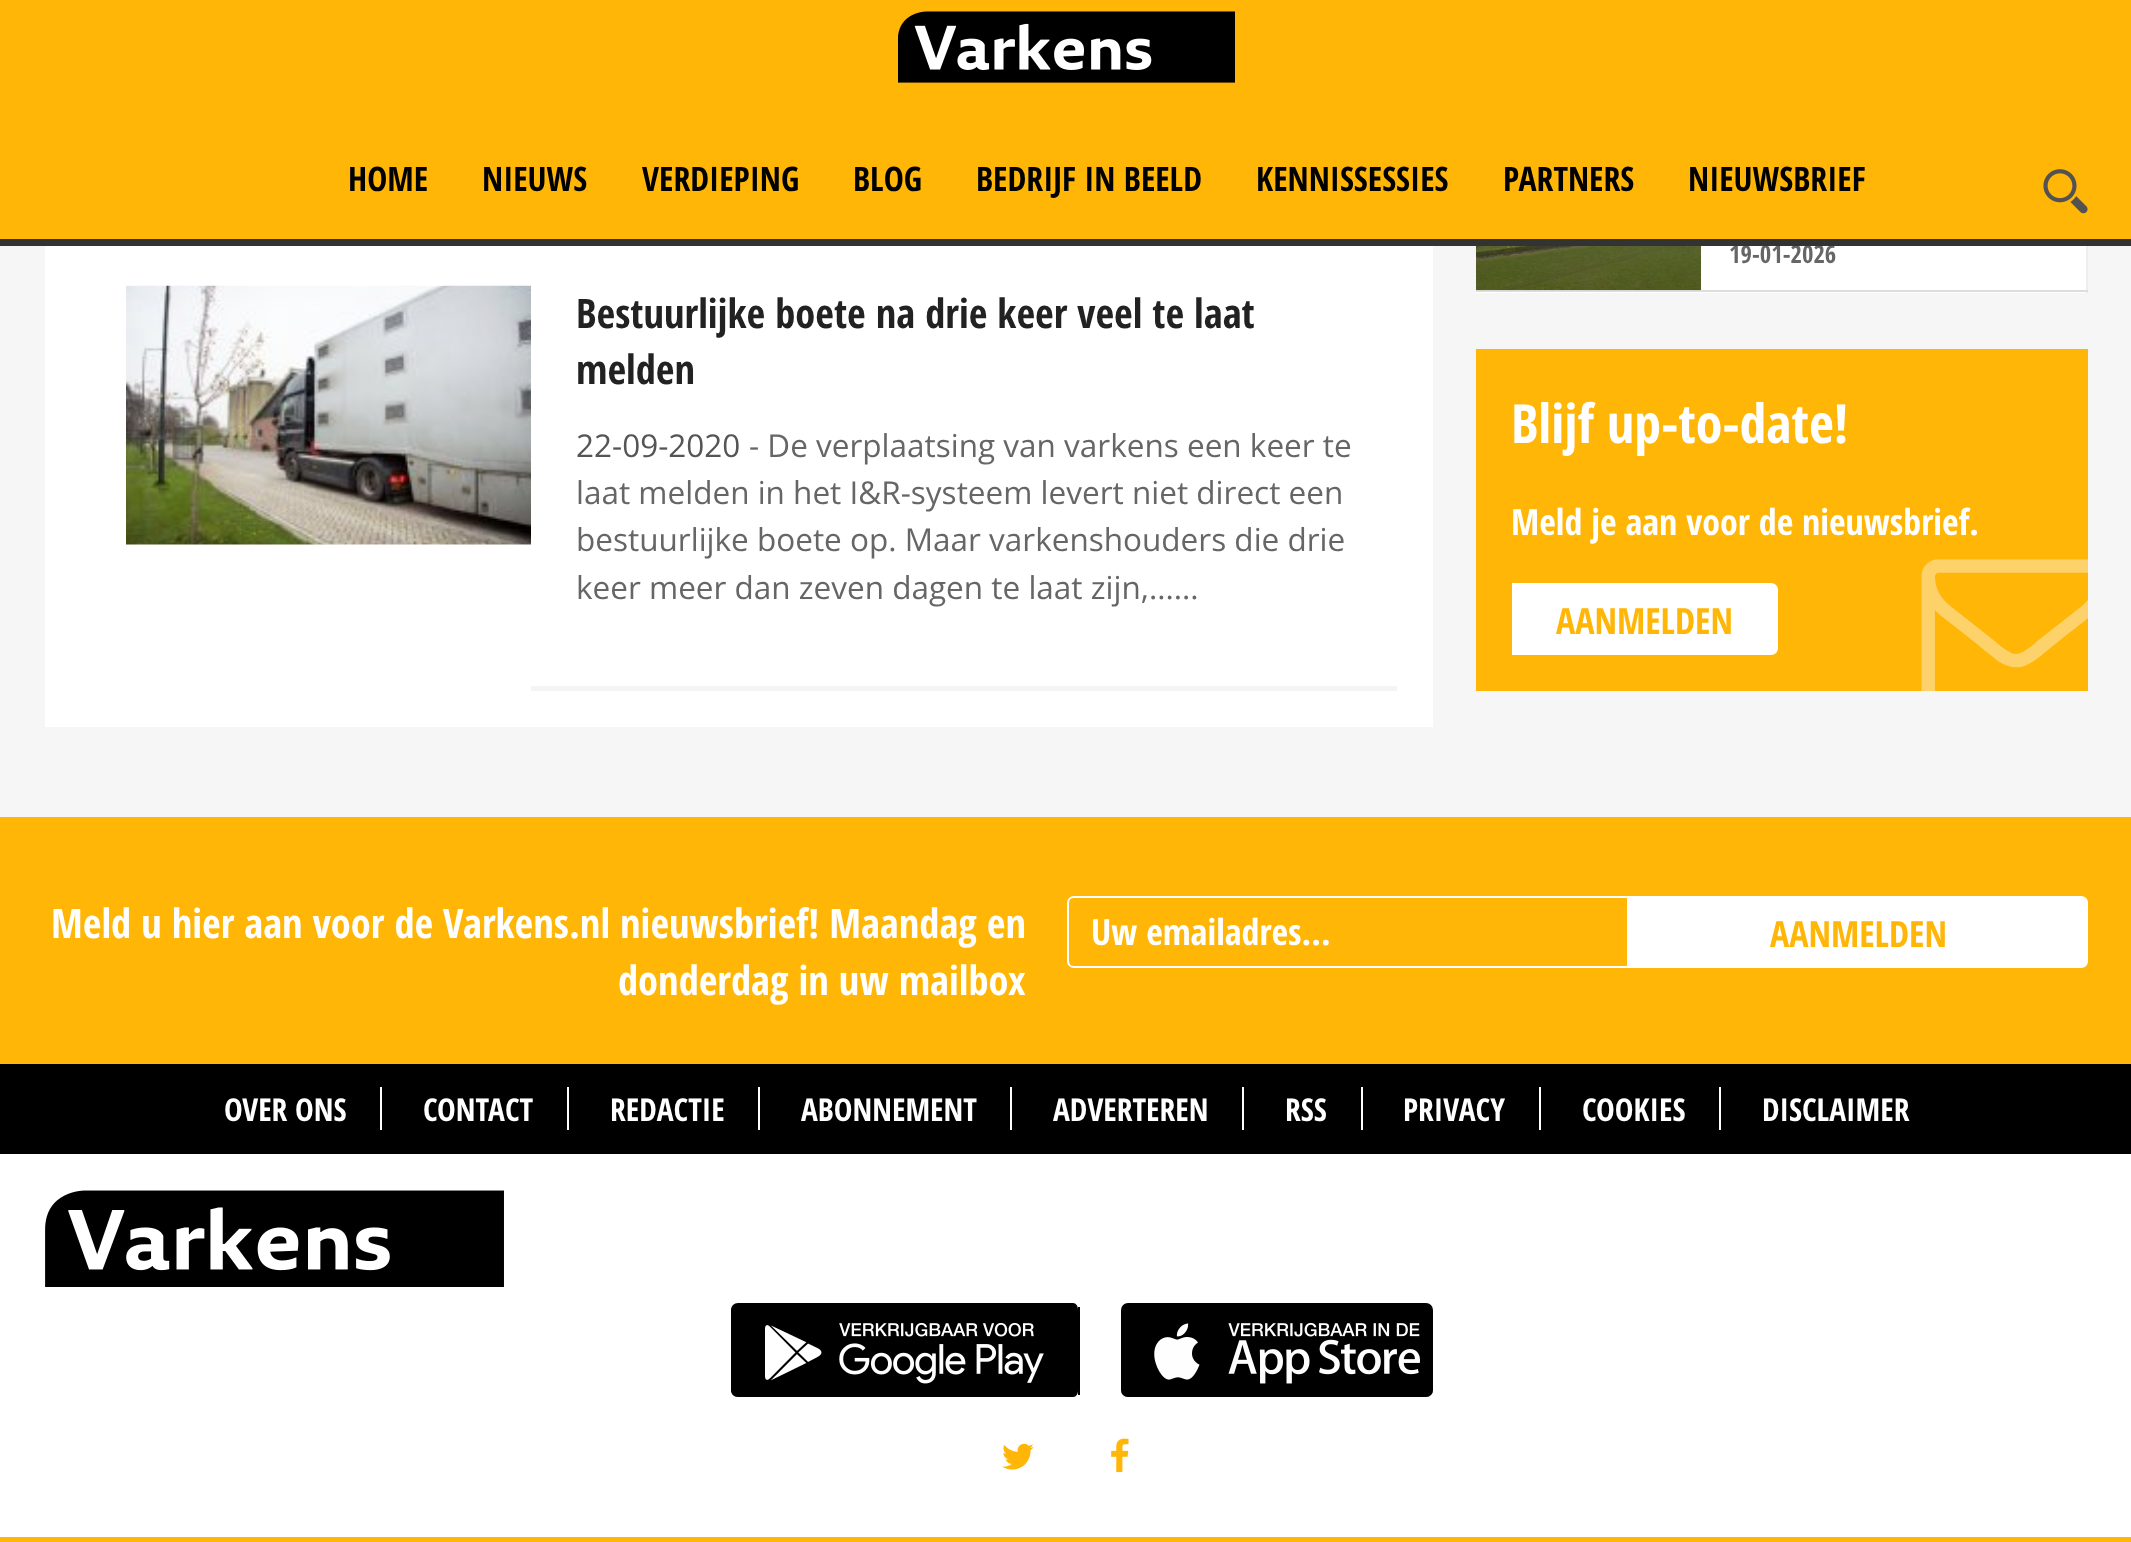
<svg xmlns="http://www.w3.org/2000/svg" width="2131" height="1542" viewBox="0 0 2131 1542">
  <rect width="100%" height="100%" fill="#f6f6f6"/>
  <path d="M0 0h2131v239H0z" fill="#ffb606"/>
  <image x="898" y="11" width="337" height="72" href="img/1.png"/>
  <image x="2043" y="169" width="45" height="45" href="img/2.png"/>
  <path d="M45 246h1388v481H45z" fill="#fff"/>
  <path d="M531 686h866v5H531z" fill="#f4f4f4"/>
  <image x="126" y="285" width="405" height="260" href="img/3.png"/>
  <path d="M1476 246h610v47H1476z" fill="#fff"/>
  <path d="M2086 246h2v47H2086z" fill="#eee"/>
  <path d="M1476 290h612v2H1476z" fill="#ddd"/>
  <image x="1476" y="246" width="225" height="45" href="img/4.png"/>
  <path d="M1476 349h612v342H1476z" fill="#ffb606"/>
  <path d="M1512 583H1771C1775 583 1778 586 1778 590V648C1778 652 1775 655 1771 655H1512Z" fill="#fff"/>
  <image x="1921" y="559" width="167" height="132" href="img/5.png"/>
  <path d="M0 817h2131v247H0z" fill="#ffb606"/>
  <path d="M1074 897H1628V967H1074C1070.5 967 1068 964.5 1068 961V903C1068 899.5 1070.5 897 1074 897Z" fill="none" stroke="#fff" stroke-width="2"/>
  <path d="M1629 896H2081C2085 896 2088 899 2088 903V961C2088 965 2085 968 2081 968H1629Z" fill="#fff"/>
  <path d="M0 1064h2131v90H0z" fill="#000"/>
  <path d="M380 1087h2v43H380z" fill="#fff"/>
  <path d="M567 1087h2v43H567z" fill="#fff"/>
  <path d="M758 1087h2v43H758z" fill="#fff"/>
  <path d="M1010 1087h2v43H1010z" fill="#fff"/>
  <path d="M1242 1087h2v43H1242z" fill="#fff"/>
  <path d="M1361 1087h2v43H1361z" fill="#fff"/>
  <path d="M1539 1087h2v43H1539z" fill="#fff"/>
  <path d="M1719 1087h2v43H1719z" fill="#fff"/>
  <path d="M0 1154h2131v383H0z" fill="#fff"/>
  <path d="M0 1537h2131v5H0z" fill="#ffb606"/>
  <image x="45" y="1190" width="459" height="97" href="img/6.png"/>
  <path d="M738 1303H1073C1076 1303 1078 1306 1078 1310V1390C1078 1394 1076 1397 1073 1397H738C734 1397 731 1394 731 1390V1310C731 1306 734 1303 738 1303Z" fill="#000"/>
  <path d="M731 1388V1390C731 1394 734 1397 738 1397H1073C1076 1397 1078 1394 1078 1390V1388C1077 1391 1075 1393 1073 1393H738C735 1393 732 1391 731 1388Z" fill="#00000080"/>
  <path d="M1078 1307h2v88H1078z" fill="#000"/>
  <image x="765" y="1322" width="279" height="62" href="img/7.png"/>
  <rect x="1121" y="1303" width="312" height="94" rx="7" fill="#000"/>
  <path d="M1121 1389V1390C1121 1394 1124 1397 1128 1397H1426C1430 1397 1433 1394 1433 1390V1386C1433 1390 1430 1393 1426 1393H1127C1125 1393 1122 1392 1121 1389Z" fill="#00000080"/>
  <image x="1154" y="1322" width="266" height="62" href="img/8.png"/>
  <image x="1002" y="1443" width="32" height="27" href="img/9.png"/>
  <image x="1111" y="1438" width="18" height="35" href="img/10.png"/>
  <g font-family="Open Sans Condensed" font-size="33.75" font-weight="bold" fill="#000">
    <text x="348" y="191">HOME</text>
    <text x="482" y="191">NIEUWS</text>
    <text x="642" y="191">VERDIEPING</text>
    <text x="853" y="191">BLOG</text>
    <text x="976" y="191">BEDRIJF IN BEELD</text>
    <text x="1256" y="191">KENNISSESSIES</text>
    <text x="1503" y="191">PARTNERS</text>
    <text x="1688" y="191">NIEUWSBRIEF</text>
  </g>
  <g font-family="Open Sans Condensed" font-size="40.5" font-weight="bold" fill="#222">
    <text x="576" y="328">Bestuurlijke boete na drie keer veel te laat</text>
    <text x="576" y="384">melden</text>
  </g>
  <text x="576" y="457" font-family="Open Sans" font-size="31.5" fill="#555">22-09-2020</text>
  <g font-family="Open Sans" font-size="31.5" fill="#666">
    <text x="749" y="457">- De verplaatsing van varkens een keer te</text>
    <text x="576" y="504">laat melden in het I&amp;R-systeem levert niet direct een</text>
    <text x="576" y="551">bestuurlijke boete op. Maar varkenshouders die drie</text>
    <text x="576" y="599">keer meer dan zeven dagen te laat zijn,......</text>
  </g>
  <text x="1729" y="263" font-family="Open Sans Condensed" font-size="24.75" font-weight="bold" fill="#666">19-01-2026</text>
  <path d="M0 239h2131v7H0z" fill="#333"/>
  <text x="1511" y="443" font-family="Open Sans Condensed" font-size="54" font-weight="bold" fill="#fff">Blijf up-to-date!</text>
  <text x="1511" y="535" font-family="Open Sans Condensed" font-size="36" font-weight="bold" fill="#fff">Meld je aan voor de nieuwsbrief.</text>
  <text x="1556" y="634" font-family="Open Sans Condensed" font-size="36" font-weight="bold" fill="#ffb606">AANMELDEN</text>
  <g font-family="Open Sans Condensed" font-size="40.5" font-weight="bold" fill="#fff">
    <text x="51" y="938">Meld u hier aan voor de Varkens.nl nieuwsbrief! Maandag en</text>
    <text x="618" y="995">donderdag in uw mailbox</text>
  </g>
  <text x="1091" y="945" font-family="Open Sans Condensed" font-size="36" font-weight="bold" fill="#fff">Uw emailadres...</text>
  <text x="1770" y="947" font-family="Open Sans Condensed" font-size="36" font-weight="bold" fill="#ffb606">AANMELDEN</text>
  <g font-family="Open Sans Condensed" font-size="31.5" font-weight="bold" fill="#fff">
    <text x="224" y="1121">OVER ONS</text>
    <text x="423" y="1121">CONTACT</text>
    <text x="610" y="1121">REDACTIE</text>
    <text x="801" y="1121">ABONNEMENT</text>
    <text x="1053" y="1121">ADVERTEREN</text>
    <text x="1285" y="1121">RSS</text>
    <text x="1403" y="1121">PRIVACY</text>
    <text x="1582" y="1121">COOKIES</text>
    <text x="1762" y="1121">DISCLAIMER</text>
  </g>
</svg>
